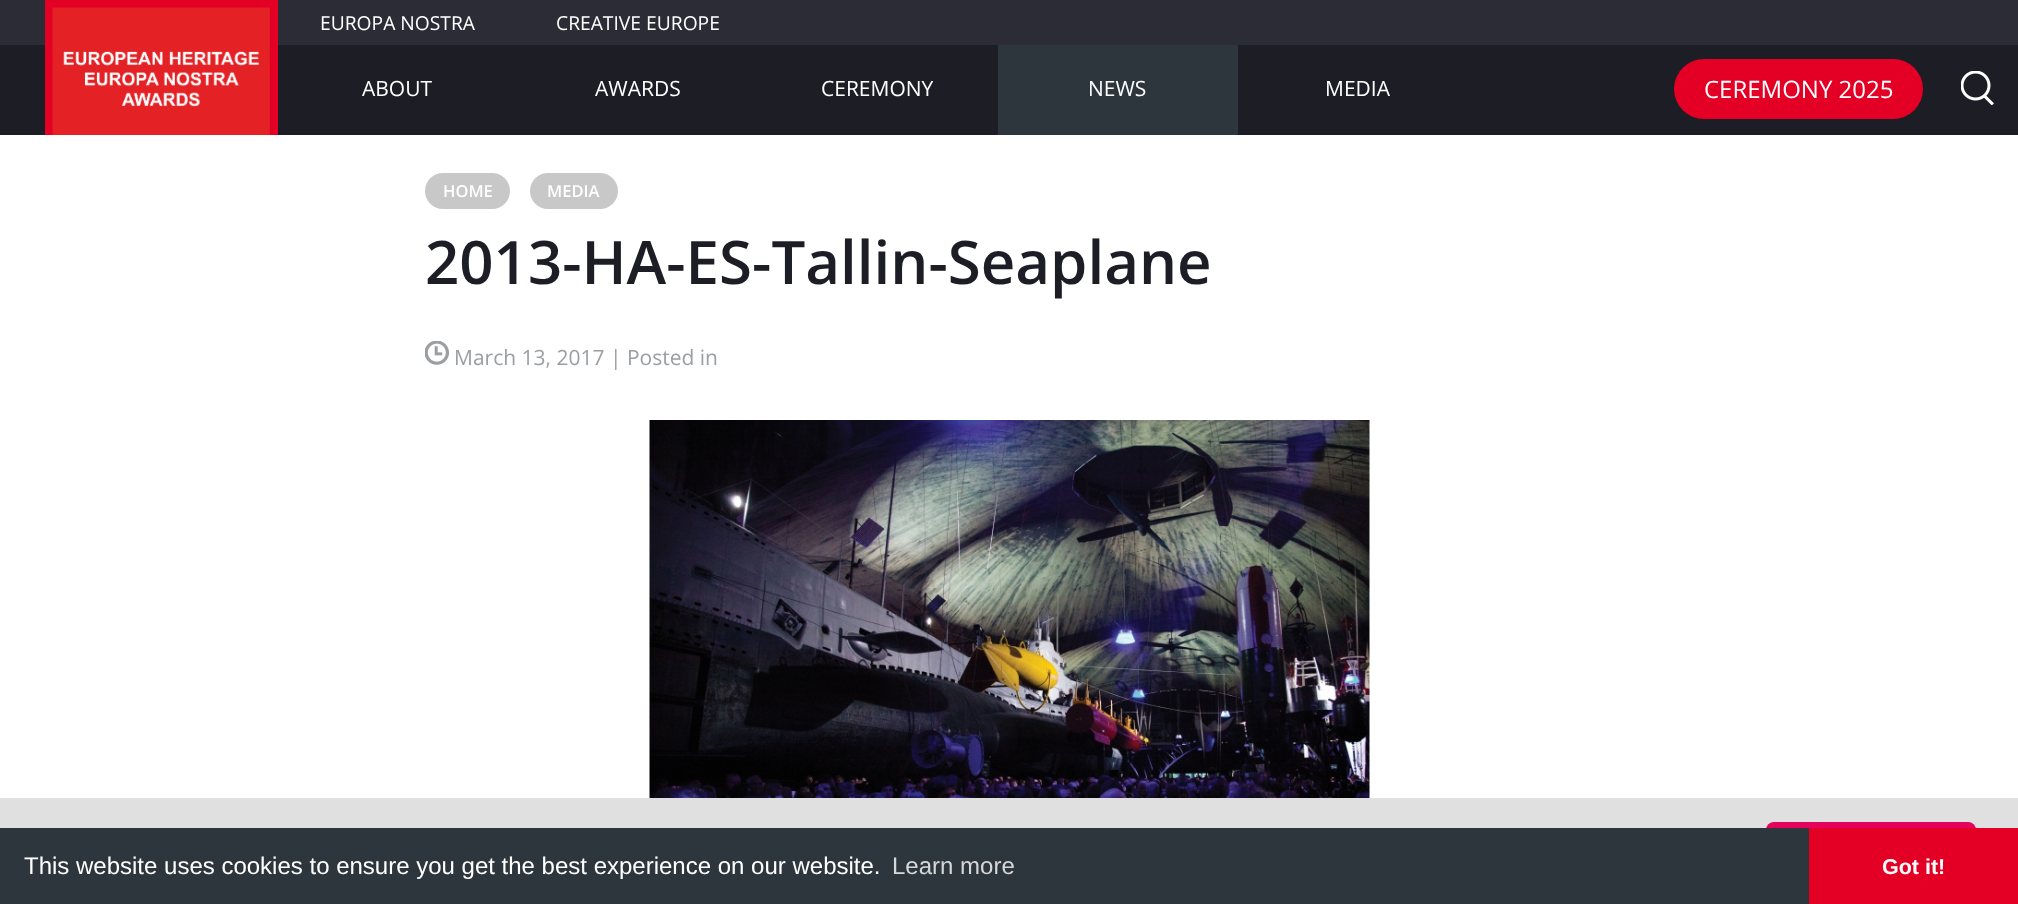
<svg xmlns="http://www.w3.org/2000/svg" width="2018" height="904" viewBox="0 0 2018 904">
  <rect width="100%" height="100%" fill="#fff"/>
  <path d="M0 45h2018v90H0z" fill="#1d1d26"/>
  <path d="M0 0h2018v45H0z" fill="#2c2c37"/>
  <path d="M45 0h233v135H45z" fill="#e40025"/>
  <image x="52" y="7" width="218" height="128" href="img/1.png"/>
  <path d="M998 45h240v90H998z" fill="#2c363c"/>
  <rect x="1674" y="59" width="249" height="60" rx="30" fill="#e40025"/>
  <image x="1961" y="71" width="33" height="34" href="img/2.png"/>
  <rect x="425" y="173" width="85" height="36" rx="18" fill="#c8c8c8"/>
  <rect x="530" y="173" width="88" height="36" rx="18" fill="#c8c8c8"/>
  <image x="425" y="341" width="24" height="24" href="img/3.png"/>
  <image x="649" y="420" width="721" height="378" href="img/4.png"/>
  <path d="M0 798h2018v30H0z" fill="#e0e0e0"/>
  <rect x="1766" y="822" width="210" height="59" rx="8" fill="#e5025d"/>
  <path d="M0 828h1809v76H0z" fill="#2c363c"/>
  <path d="M1809 828h209v76H1809z" fill="#e40025"/>
  <g font-family="Open Sans" font-size="19.25" fill="#fff">
    <text x="320" y="30">EUROPA NOSTRA</text>
    <text x="556" y="30">CREATIVE EUROPE</text>
  </g>
  <g font-family="Open Sans" font-size="21" fill="#fff">
    <text x="362" y="96">ABOUT</text>
    <text x="595" y="96">AWARDS</text>
    <text x="821" y="96">CEREMONY</text>
    <text x="1088" y="96">NEWS</text>
    <text x="1325" y="96">MEDIA</text>
  </g>
  <text x="1704" y="98" font-family="Open Sans" font-size="24" fill="#fff">CEREMONY 2025</text>
  <g font-family="Open Sans" font-size="16.5" font-weight="600" fill="#fff">
    <text x="443" y="197">HOME</text>
    <text x="547" y="197">MEDIA</text>
  </g>
  <text x="425" y="284" font-family="Open Sans" font-size="60" font-weight="600" fill="#1d1d26">2013-HA-ES-Tallin-Seaplane</text>
  <text x="454" y="365" font-family="Open Sans" font-size="21" fill="#9b9fa2">March 13, 2017 | Posted in</text>
  <text x="24" y="874" font-family="Liberation Sans" font-size="24" fill="#fff">This website uses cookies to ensure you get the best experience on our website.</text>
  <text x="892" y="874" font-family="Liberation Sans" font-size="24" fill="#d5d7d8">Learn more</text>
  <text x="1882" y="874" font-family="Liberation Sans" font-size="21.5" font-weight="bold" fill="#fff">Got it!</text>
</svg>
